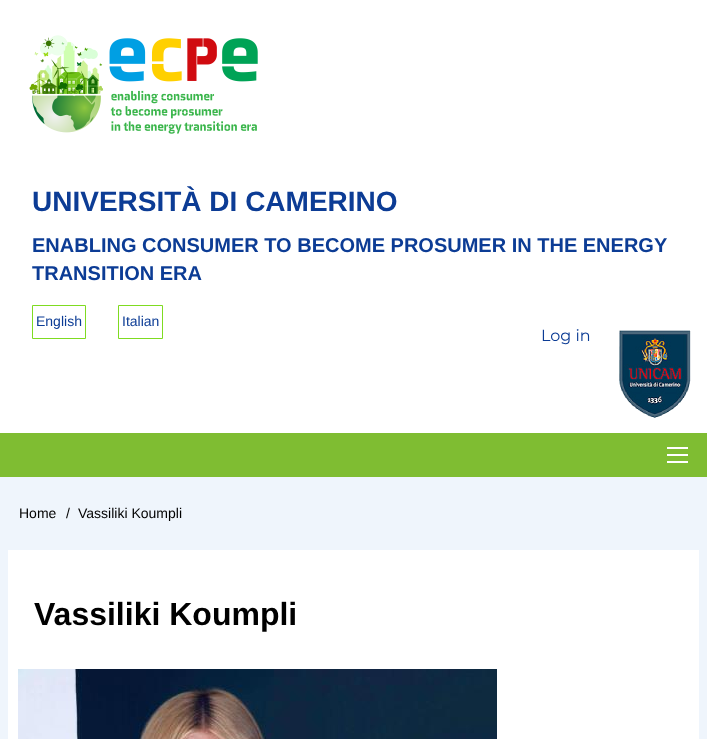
<svg xmlns="http://www.w3.org/2000/svg" width="707" height="739" viewBox="0 0 707 739">
  <rect width="100%" height="100%" fill="#fff"/>
  <image x="29" y="35" width="229" height="99" href="img/1.png"/>
  <path d="M32.5 305.5h53v33H32.5z" fill="none" stroke="#7fdb21"/>
  <path d="M118.5 305.5h44v33H118.5z" fill="none" stroke="#7fdb21"/>
  <image x="619" y="330" width="72" height="88" href="img/2.png"/>
  <path d="M0 433h707v44H0z" fill="#7fbd32"/>
  <path d="M667 454h21v2H667z" fill="#fff"/>
  <path d="M667 447h21v2H667z" fill="#fff"/>
  <path d="M667 461h21v2H667z" fill="#fff"/>
  <path d="M0 477h707v262H0z" fill="#eff5fc"/>
  <path d="M8 550h691v189H8z" fill="#fff"/>
  <image x="18" y="669" width="479" height="70" href="img/3.png"/>
  <text x="32" y="211" font-family="Liberation Sans" font-size="28" font-weight="bold" fill="#0c3c95">UNIVERSITÀ DI CAMERINO</text>
  <g font-family="Liberation Sans" font-size="20" font-weight="bold" fill="#0c3c95">
    <text x="32" y="252">ENABLING CONSUMER TO BECOME PROSUMER IN THE ENERGY</text>
    <text x="32" y="280">TRANSITION ERA</text>
  </g>
  <g font-family="Liberation Sans" font-size="14" fill="#0c3c95">
    <text x="36" y="326">English</text>
    <text x="122" y="326">Italian</text>
  </g>
  <text x="541" y="341" font-family="Montserrat" font-size="16" fill="#0c3c95">Log in</text>
  <g font-family="Liberation Sans" font-size="14" fill="#000">
    <text x="19" y="518">Home</text>
    <text x="66" y="518">/</text>
    <text x="78" y="518">Vassiliki Koumpli</text>
  </g>
  <text x="34" y="625" font-family="Liberation Sans" font-size="32" font-weight="bold" fill="#000">Vassiliki Koumpli</text>
</svg>
